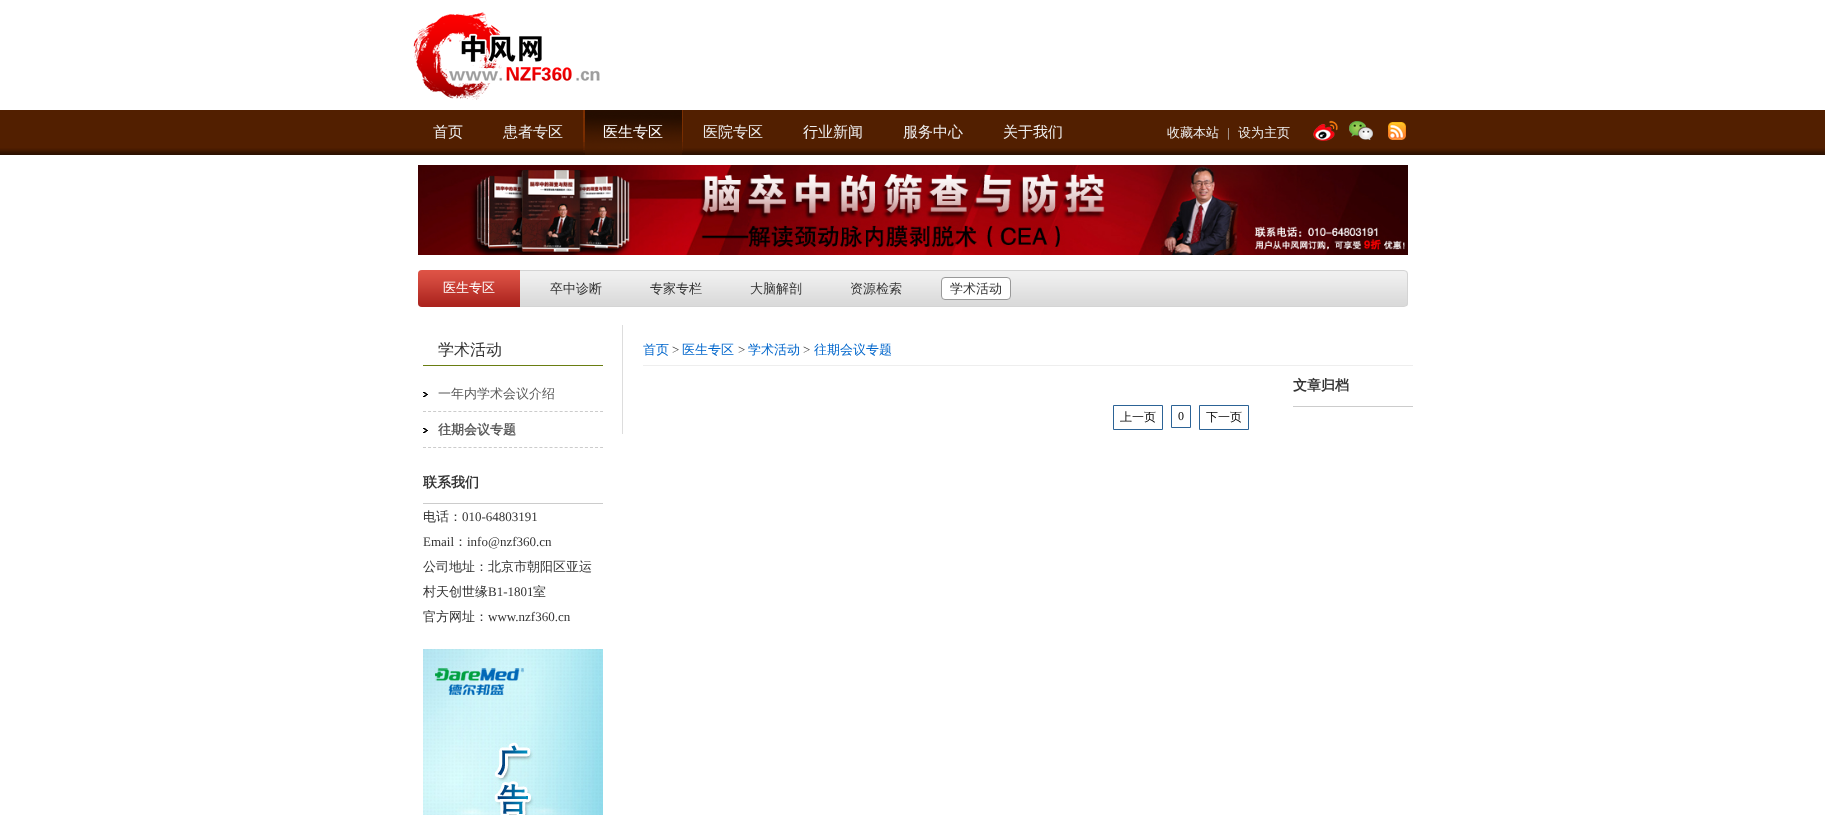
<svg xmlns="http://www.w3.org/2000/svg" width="1825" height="815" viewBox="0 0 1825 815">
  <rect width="100%" height="100%" fill="#fff"/>
  <image x="413" y="12" width="187" height="88" href="img/1.png"/>
  <image x="0" y="110" width="1825" height="45" href="img/2.png"/>
  <image x="585" y="110" width="98" height="45" href="img/3.png"/>
  <image x="583" y="110" width="2" height="45" href="img/4.png"/>
  <image x="1313" y="120" width="25" height="21" href="img/5.png"/>
  <image x="1349" y="121" width="24" height="19" href="img/6.png"/>
  <image x="1388" y="122" width="18" height="18" href="img/7.png"/>
  <image x="418" y="165" width="990" height="90" href="img/8.png"/>
  <image x="418" y="271" width="990" height="35" href="img/9.png"/>
  <rect x="418.5" y="270.5" width="989" height="36" rx="3.5" fill="none" stroke="#d4d4d4"/>
  <image x="418" y="270" width="102" height="37" href="img/10.png"/>
  <rect x="941.5" y="277.5" width="69" height="22" rx="3.5" fill="#fff" stroke="#999"/>
  <path d="M423 365h180v1H423z" fill="#6a7e12"/>
  <image x="423" y="392" width="5" height="5" href="img/11.png"/>
  <path d="M423 411.5H603" fill="none" stroke="#ccc" stroke-dasharray="3 2.06"/>
  <image x="423" y="428" width="5" height="5" href="img/11.png"/>
  <path d="M423 447.5H603" fill="none" stroke="#ccc" stroke-dasharray="3 2.06"/>
  <path d="M423 503h180v1H423z" fill="#ccc"/>
  <image x="423" y="649" width="180" height="166" href="img/12.png"/>
  <path d="M622 325h1v109H622z" fill="#ddd"/>
  <path d="M643 365h770v1H643z" fill="#eee"/>
  <path d="M1293 406h120v1H1293z" fill="#ccc"/>
  <path d="M1113.5 405.5h49v24H1113.5z" fill="none" stroke="#2c6396"/>
  <path d="M1171.5 405.5h19v22H1171.5z" fill="none" stroke="#2c6396"/>
  <path d="M1199.5 405.5h49v24H1199.5z" fill="none" stroke="#2c6396"/>
  <g font-family="WenQuanYi Zen Hei" font-size="15" font-weight="500" fill="#ededed">
    <text x="433" y="137">首页</text>
    <text x="503" y="137">患者专区</text>
  </g>
  <text x="603" y="137" font-family="WenQuanYi Zen Hei" font-size="15" font-weight="500" fill="#fff">医生专区</text>
  <g font-family="WenQuanYi Zen Hei" font-size="15" font-weight="500" fill="#ededed">
    <text x="703" y="137">医院专区</text>
    <text x="803" y="137">行业新闻</text>
    <text x="903" y="137">服务中心</text>
    <text x="1003" y="137">关于我们</text>
  </g>
  <text x="1167" y="137" font-family="WenQuanYi Zen Hei" font-size="13" font-weight="500" fill="#ededed">收藏本站</text>
  <text x="1227" y="137" font-family="Liberation Serif" font-size="13" fill="#ccc">|</text>
  <text x="1238" y="137" font-family="WenQuanYi Zen Hei" font-size="13" font-weight="500" fill="#ededed">设为主页</text>
  <text x="443" y="292" font-family="WenQuanYi Zen Hei" font-size="13" font-weight="500" fill="#fff">医生专区</text>
  <g font-family="WenQuanYi Zen Hei" font-size="13" font-weight="500" fill="#333">
    <text x="550" y="293">卒中诊断</text>
    <text x="650" y="293">专家专栏</text>
    <text x="750" y="293">大脑解剖</text>
    <text x="850" y="293">资源检索</text>
    <text x="950" y="293">学术活动</text>
  </g>
  <text x="438" y="355" font-family="WenQuanYi Zen Hei" font-size="16" font-weight="500" fill="#333">学术活动</text>
  <text x="438" y="398" font-family="WenQuanYi Zen Hei" font-size="13" font-weight="500" fill="#5a5a5a">一年内学术会议介绍</text>
  <text x="438" y="434" font-family="WenQuanYi Zen Hei" font-size="13" font-weight="bold" fill="#5a5a5a">往期会议专题</text>
  <text x="423" y="487" font-family="WenQuanYi Zen Hei" font-size="14" font-weight="bold" fill="#333">联系我们</text>
  <text x="423" y="521" font-family="WenQuanYi Zen Hei" font-size="13" font-weight="500" fill="#333">电话：</text>
  <g font-family="Liberation Serif" font-size="13" fill="#333">
    <text x="462" y="521">010-64803191</text>
    <text x="423" y="546">Email</text>
  </g>
  <text x="454" y="546" font-family="WenQuanYi Zen Hei" font-size="13" font-weight="500" fill="#333">：</text>
  <text x="467" y="546" font-family="Liberation Serif" font-size="13" fill="#333">info@nzf360.cn</text>
  <g font-family="WenQuanYi Zen Hei" font-size="13" font-weight="500" fill="#333">
    <text x="423" y="571">公司地址：北京市朝阳区亚运</text>
    <text x="423" y="596">村天创世缘</text>
  </g>
  <text x="488" y="596" font-family="Liberation Serif" font-size="13" fill="#333">B1-1801</text>
  <g font-family="WenQuanYi Zen Hei" font-size="13" font-weight="500" fill="#333">
    <text x="533" y="596">室</text>
    <text x="423" y="621">官方网址：</text>
  </g>
  <text x="488" y="621" font-family="Liberation Serif" font-size="13" fill="#333">www.nzf360.cn</text>
  <text x="643" y="354" font-family="WenQuanYi Zen Hei" font-size="13" font-weight="500" fill="#06c">首页</text>
  <text x="672" y="354" font-family="Liberation Serif" font-size="13" fill="#333">&gt;</text>
  <text x="682" y="354" font-family="WenQuanYi Zen Hei" font-size="13" font-weight="500" fill="#06c">医生专区</text>
  <text x="738" y="354" font-family="Liberation Serif" font-size="13" fill="#333">&gt;</text>
  <text x="748" y="354" font-family="WenQuanYi Zen Hei" font-size="13" font-weight="500" fill="#06c">学术活动</text>
  <text x="803" y="354" font-family="Liberation Serif" font-size="13" fill="#333">&gt;</text>
  <text x="814" y="354" font-family="WenQuanYi Zen Hei" font-size="13" font-weight="500" fill="#06c">往期会议专题</text>
  <text x="1293" y="390" font-family="WenQuanYi Zen Hei" font-size="14" font-weight="bold" fill="#333">文章归档</text>
  <text x="1120" y="421" font-family="WenQuanYi Zen Hei" font-size="12" font-weight="500" fill="#000">上一页</text>
  <text x="1178" y="420" font-family="Liberation Serif" font-size="12" fill="#000">0</text>
  <text x="1206" y="421" font-family="WenQuanYi Zen Hei" font-size="12" font-weight="500" fill="#000">下一页</text>
</svg>
